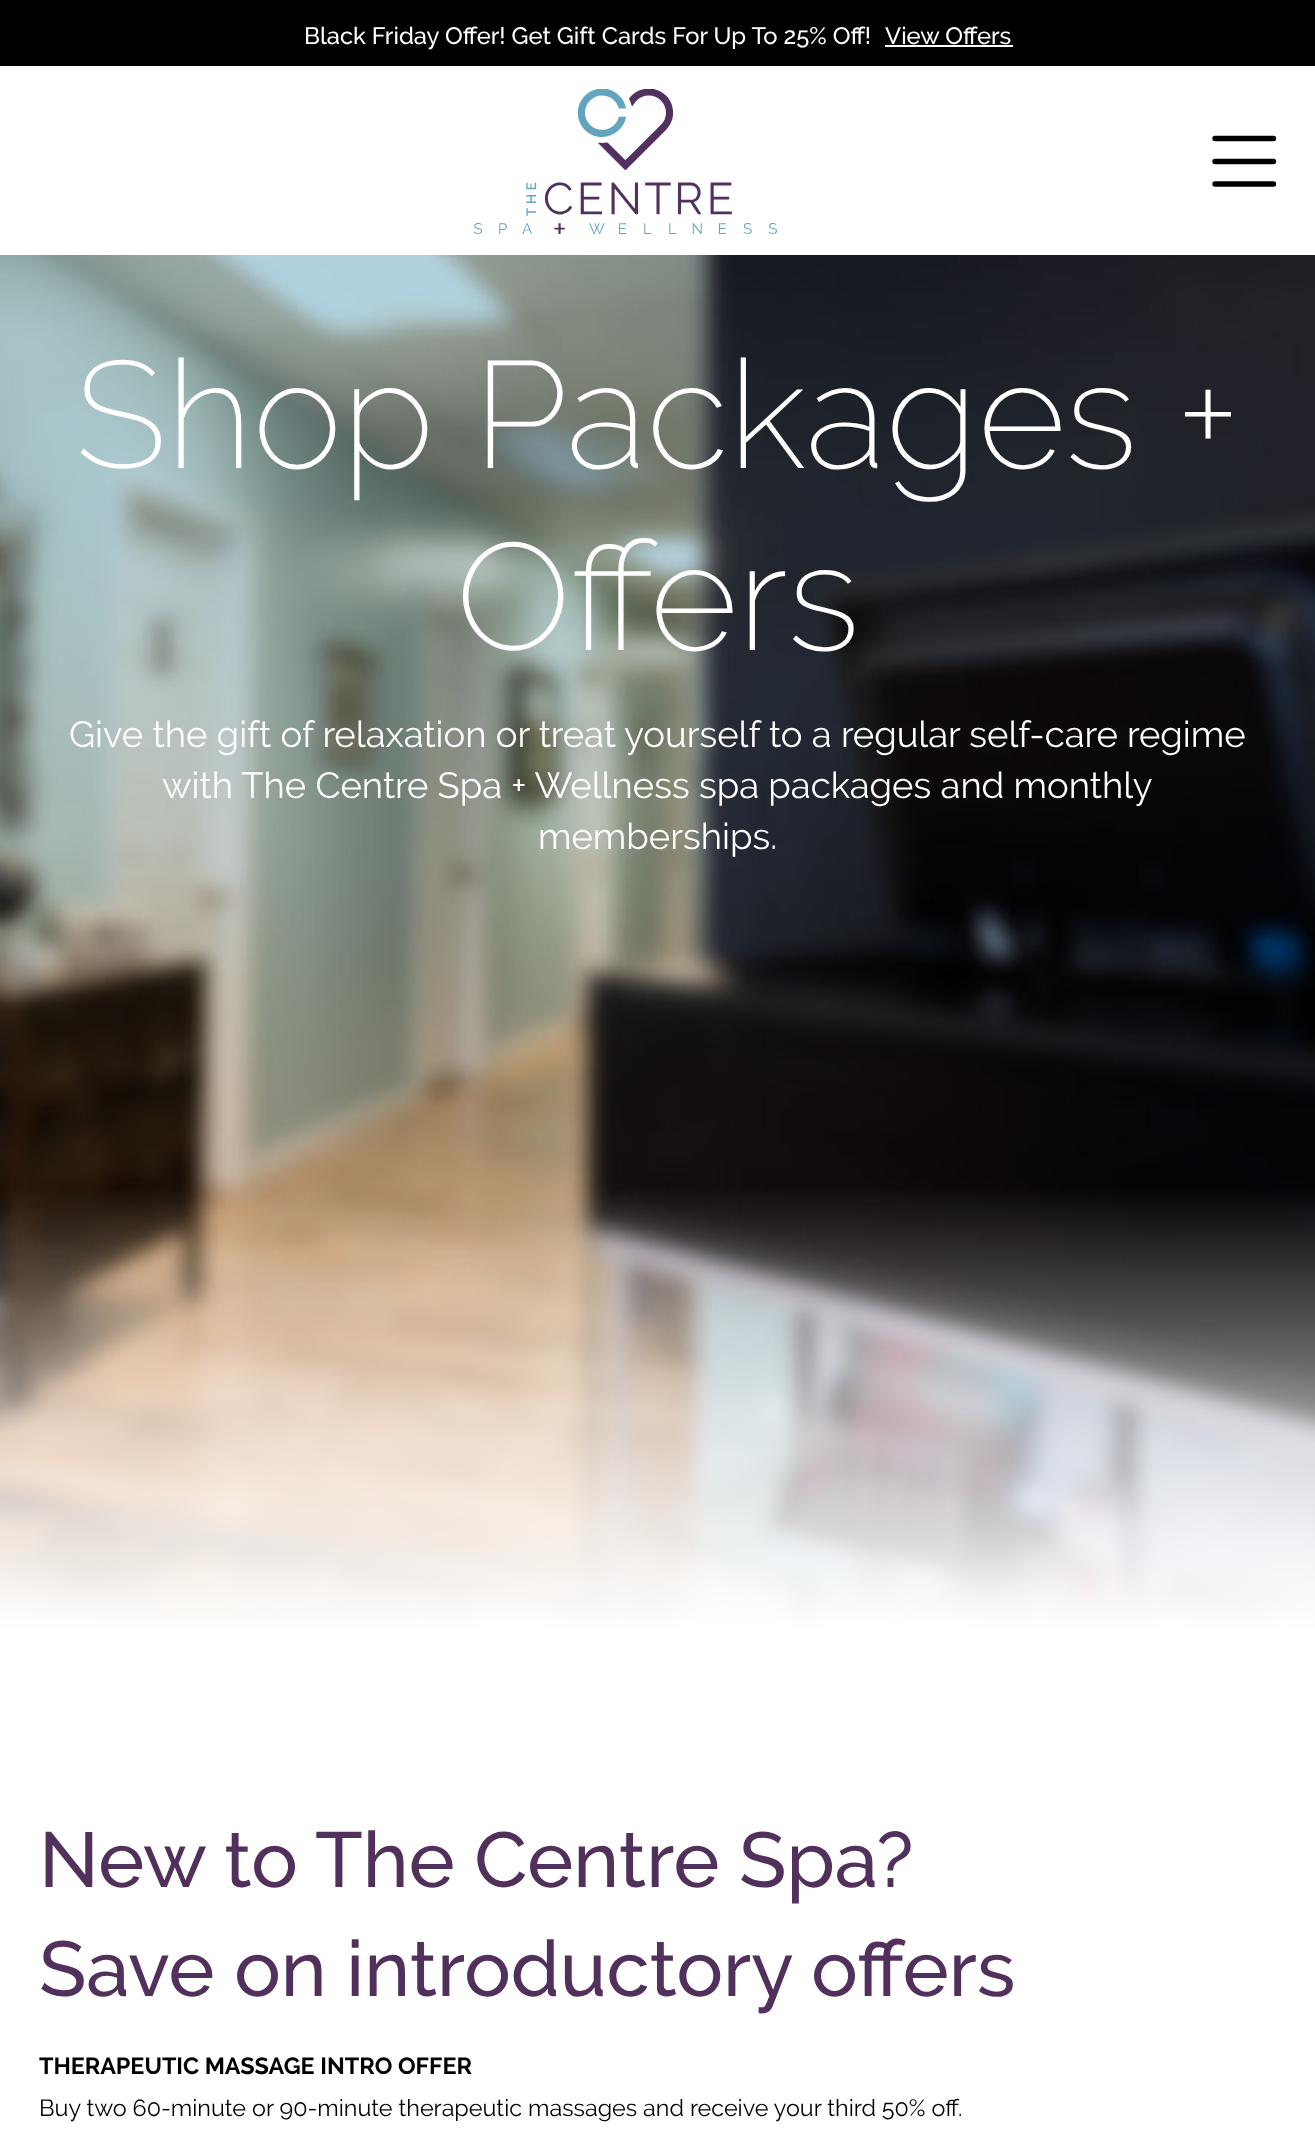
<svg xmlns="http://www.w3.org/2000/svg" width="1315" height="2142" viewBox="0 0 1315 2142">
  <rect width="100%" height="100%" fill="#fff"/>
  <path d="M0 0h1315v66H0z" fill="#000"/>
  <path d="M885 45h128v2H885z" fill="#fff"/>
  <image x="474" y="89" width="303" height="145" href="img/1.png"/>
  <path d="M1215 138.5H1273.5" fill="none" stroke="#000" stroke-width="5.4" stroke-linecap="round"/>
  <path d="M1215 161.5H1273.5" fill="none" stroke="#000" stroke-width="5.4" stroke-linecap="round"/>
  <path d="M1215 184H1273.5" fill="none" stroke="#000" stroke-width="5.4" stroke-linecap="round"/>
  <image x="0" y="255" width="1315" height="1473" href="img/2.png"/>
  <g font-family="Raleway" font-size="23.75" font-weight="500" fill="#fff">
    <text x="304" y="44">Black Friday Offer! Get Gift Cards For Up To 25% Off!</text>
    <text x="885" y="44">View Offers</text>
  </g>
  <g font-family="Raleway" font-size="151.5" font-weight="200" fill="#fff">
    <text x="75" y="468">Shop Packages +</text>
    <text x="456" y="650">Offers</text>
  </g>
  <g font-family="Raleway" font-size="36.45" fill="#fff">
    <text x="69" y="747">Give the gift of relaxation or treat yourself to a regular self-care regime</text>
    <text x="162" y="798">with The Centre Spa + Wellness spa packages and monthly</text>
    <text x="538" y="849">memberships.</text>
  </g>
  <g font-family="Raleway" font-size="77.75" font-weight="500" fill="#51305c">
    <text x="39" y="1887">New to The Centre Spa?</text>
    <text x="39" y="1996">Save on introductory offers</text>
  </g>
  <text x="39" y="2074" font-family="Raleway" font-size="23.35" font-weight="bold" fill="#000">THERAPEUTIC MASSAGE INTRO OFFER</text>
  <text x="39" y="2116" font-family="Raleway" font-size="23.35" fill="#000">Buy two 60-minute or 90-minute therapeutic massages and receive your third 50% off.</text>
</svg>
